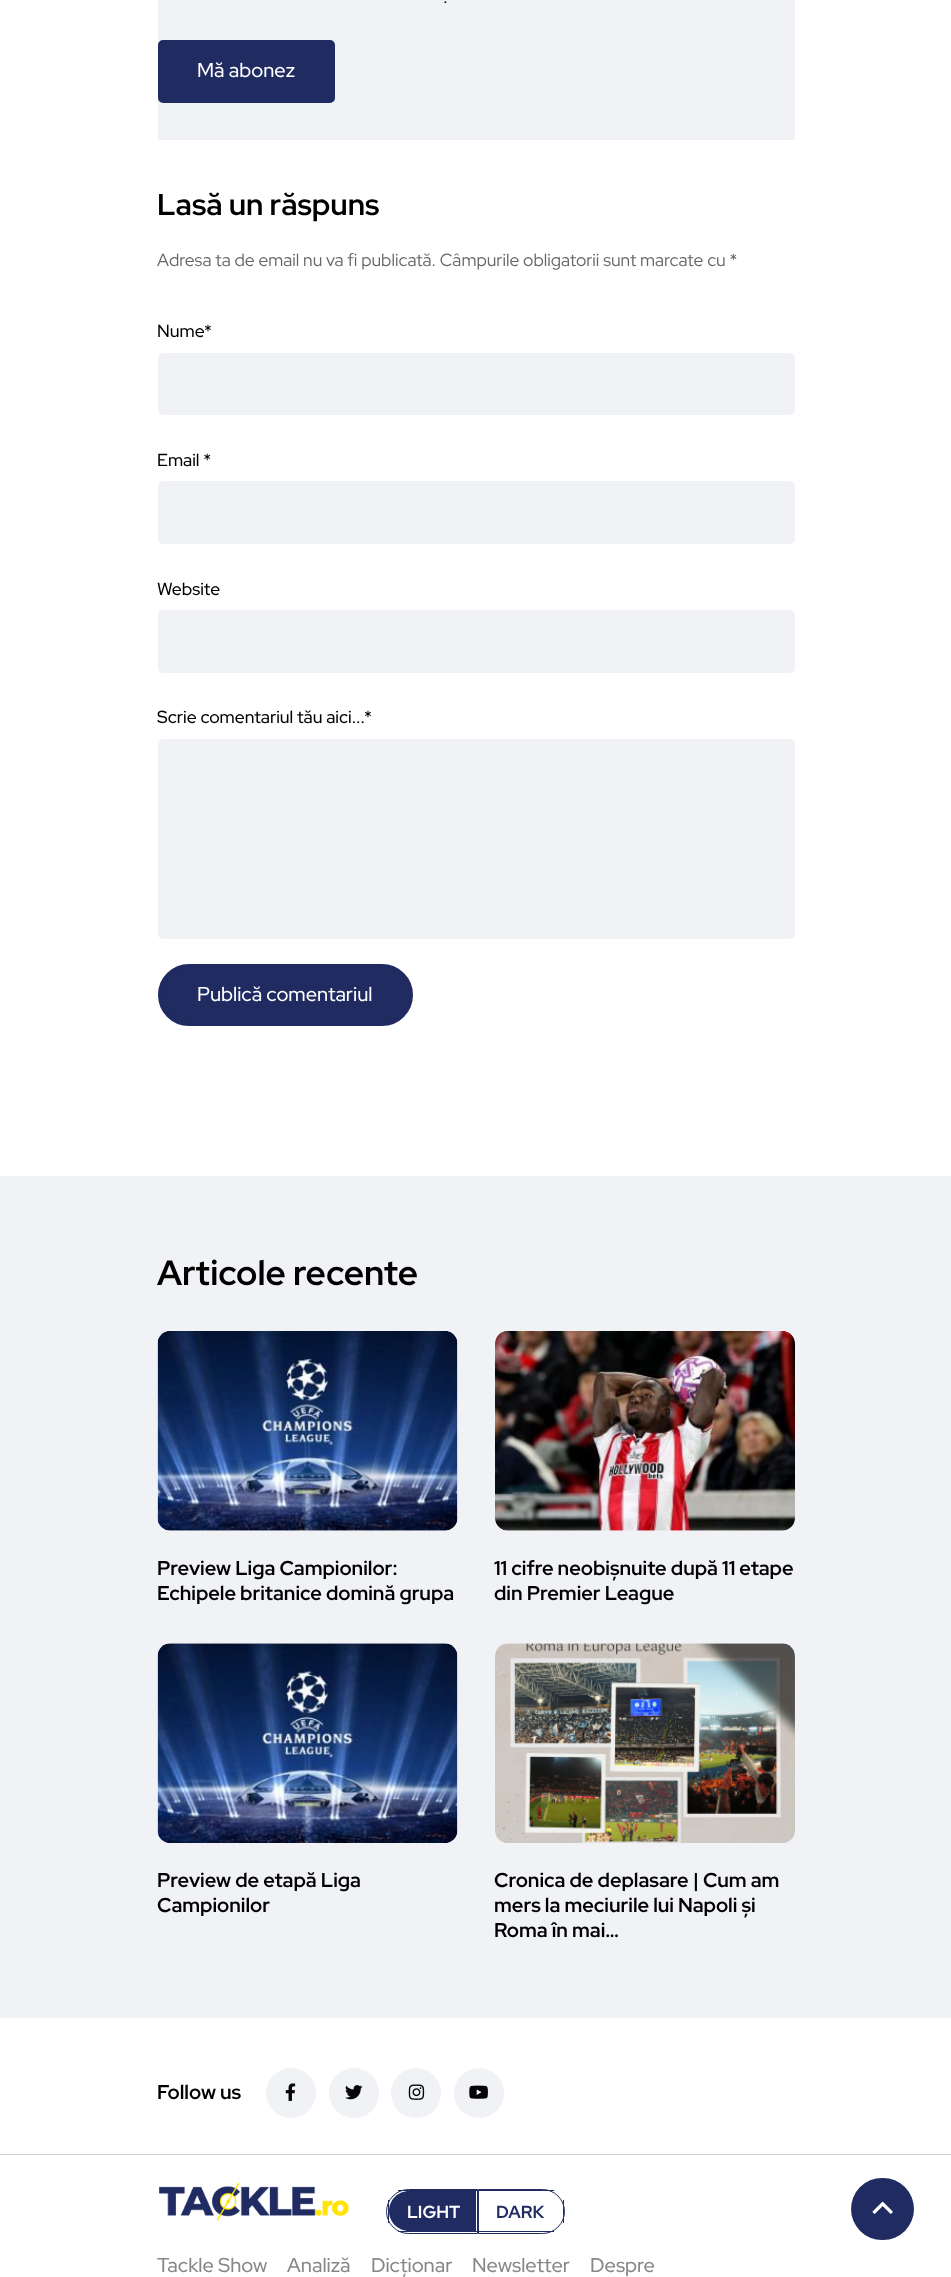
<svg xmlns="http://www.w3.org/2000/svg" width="951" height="2277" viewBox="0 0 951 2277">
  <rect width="100%" height="100%" fill="#fff"/>
  <path d="M158 0h637v140H158z" fill="#f0f2f5"/>
  <rect x="159.5" y="41.5" width="174" height="60" rx="3.5" fill="#202b61" stroke="#202b61" stroke-width="3"/>
  <rect x="158" y="353" width="637" height="62" rx="5" fill="#f0f2f5"/>
  <rect x="158" y="481" width="637" height="63" rx="5" fill="#f0f2f5"/>
  <rect x="158" y="610" width="637" height="63" rx="5" fill="#f0f2f5"/>
  <rect x="158" y="739" width="637" height="200" rx="5" fill="#f0f2f5"/>
  <rect x="159.5" y="965.5" width="252" height="59" rx="29.5" fill="#202b61" stroke="#202b61" stroke-width="3"/>
  <path d="M0 1176h951v842H0z" fill="#f0f2f5"/>
  <image x="157" y="1331" width="301" height="200" href="img/1.png"/>
  <image x="495" y="1331" width="300" height="200" href="img/2.png"/>
  <image x="157" y="1643" width="301" height="200" href="img/3.png"/>
  <image x="495" y="1643" width="300" height="200" href="img/4.png"/>
  <circle cx="291" cy="2093" r="25" fill="#f0f2f5"/>
  <image x="285" y="2083" width="11" height="18" href="img/5.png"/>
  <circle cx="354" cy="2093" r="25" fill="#f0f2f5"/>
  <image x="345" y="2085" width="18" height="15" href="img/6.png"/>
  <circle cx="416" cy="2093" r="25" fill="#f0f2f5"/>
  <image x="408" y="2084" width="17" height="16" href="img/7.png"/>
  <circle cx="479" cy="2093" r="25" fill="#f0f2f5"/>
  <image x="469" y="2085" width="19" height="14" href="img/8.png"/>
  <path d="M0 2154h951v1H0z" fill="#ced0d4"/>
  <image x="159" y="2182" width="190" height="39" href="img/9.png"/>
  <rect x="851" y="2178" width="63" height="62" rx="31" fill="#202b61"/>
  <image x="872" y="2201" width="21" height="13" href="img/10.png"/>
  <path d="M409 2191H476V2231H409C398 2231 389 2222 389 2211C389 2200 398 2191 409 2191Z" fill="#202b61"/>
  <path d="M408.5 2189.5H477.5V2233.5H408.5C396.5 2233.5 386.5 2223.5 386.5 2211.5C386.5 2199.5 396.5 2189.5 408.5 2189.5Z" fill="none" stroke="#202b61"/>
  <path d="M398 2190h80v1H398z" fill="#202b61"/>
  <path d="M398 2231h80v1H398z" fill="#202b61"/>
  <path d="M388 2200h1v23H388z" fill="#202b61"/>
  <path d="M478.5 2189.5H542.5C554.5 2189.5 564.5 2199.5 564.5 2211.5C564.5 2223.5 554.5 2233.5 542.5 2233.5H478.5Z" fill="none" stroke="#202b61"/>
  <path d="M478 2190h76v1H478z" fill="#202b61"/>
  <path d="M563 2200h1v23H563z" fill="#202b61"/>
  <path d="M478 2231h76v1H478z" fill="#202b61"/>
  <text x="443" y="3" font-family="Red Hat Display" font-size="19" fill="#000">.</text>
  <text x="197" y="77" font-family="Red Hat Display" font-size="20" font-weight="500" fill="#fff">Mă abonez</text>
  <text x="157" y="215" font-family="Red Hat Display" font-size="30" font-weight="bold" fill="#000">Lasă un răspuns</text>
  <text x="157" y="266" font-family="Red Hat Display" font-size="17.5" fill="#65676b">Adresa ta de email nu va fi publicată. Câmpurile obligatorii sunt marcate cu *</text>
  <g font-family="Red Hat Display" font-size="17.5" font-weight="500" fill="#000">
    <text x="157" y="337">Nume</text>
    <text x="204" y="337">*</text>
    <text x="157" y="466">Email *</text>
    <text x="157" y="595">Website</text>
    <text x="157" y="723">Scrie comentariul tău aici...</text>
    <text x="364" y="723">*</text>
  </g>
  <text x="197" y="1001" font-family="Red Hat Display" font-size="20" font-weight="500" fill="#fff">Publică comentariul</text>
  <text x="157" y="1285" font-family="Red Hat Display" font-size="35" font-weight="bold" fill="#000">Articole recente</text>
  <g font-family="Red Hat Display" font-size="20" font-weight="bold" fill="#000">
    <text x="157" y="1575">Preview Liga Campionilor:</text>
    <text x="157" y="1600">Echipele britanice domină grupa</text>
    <text x="494" y="1575">11 cifre neobișnuite după 11 etape</text>
    <text x="494" y="1600">din Premier League</text>
    <text x="157" y="1887">Preview de etapă Liga</text>
    <text x="157" y="1912">Campionilor</text>
    <text x="494" y="1887">Cronica de deplasare | Cum am</text>
    <text x="494" y="1912">mers la meciurile lui Napoli și</text>
    <text x="494" y="1937">Roma în mai…</text>
    <text x="157" y="2099">Follow us</text>
  </g>
  <g font-family="Red Hat Display" font-size="20" font-weight="500" fill="#878787">
    <text x="157" y="2272">Tackle Show</text>
    <text x="287" y="2272">Analiză</text>
    <text x="371" y="2272">Dicționar</text>
    <text x="472" y="2272">Newsletter</text>
    <text x="590" y="2272">Despre</text>
  </g>
  <text x="407" y="2218" font-family="Red Hat Display" font-size="17.5" font-weight="bold" fill="#fff">LIGHT</text>
  <text x="496" y="2218" font-family="Red Hat Display" font-size="17.5" font-weight="bold" fill="#202b61">DARK</text>
</svg>
